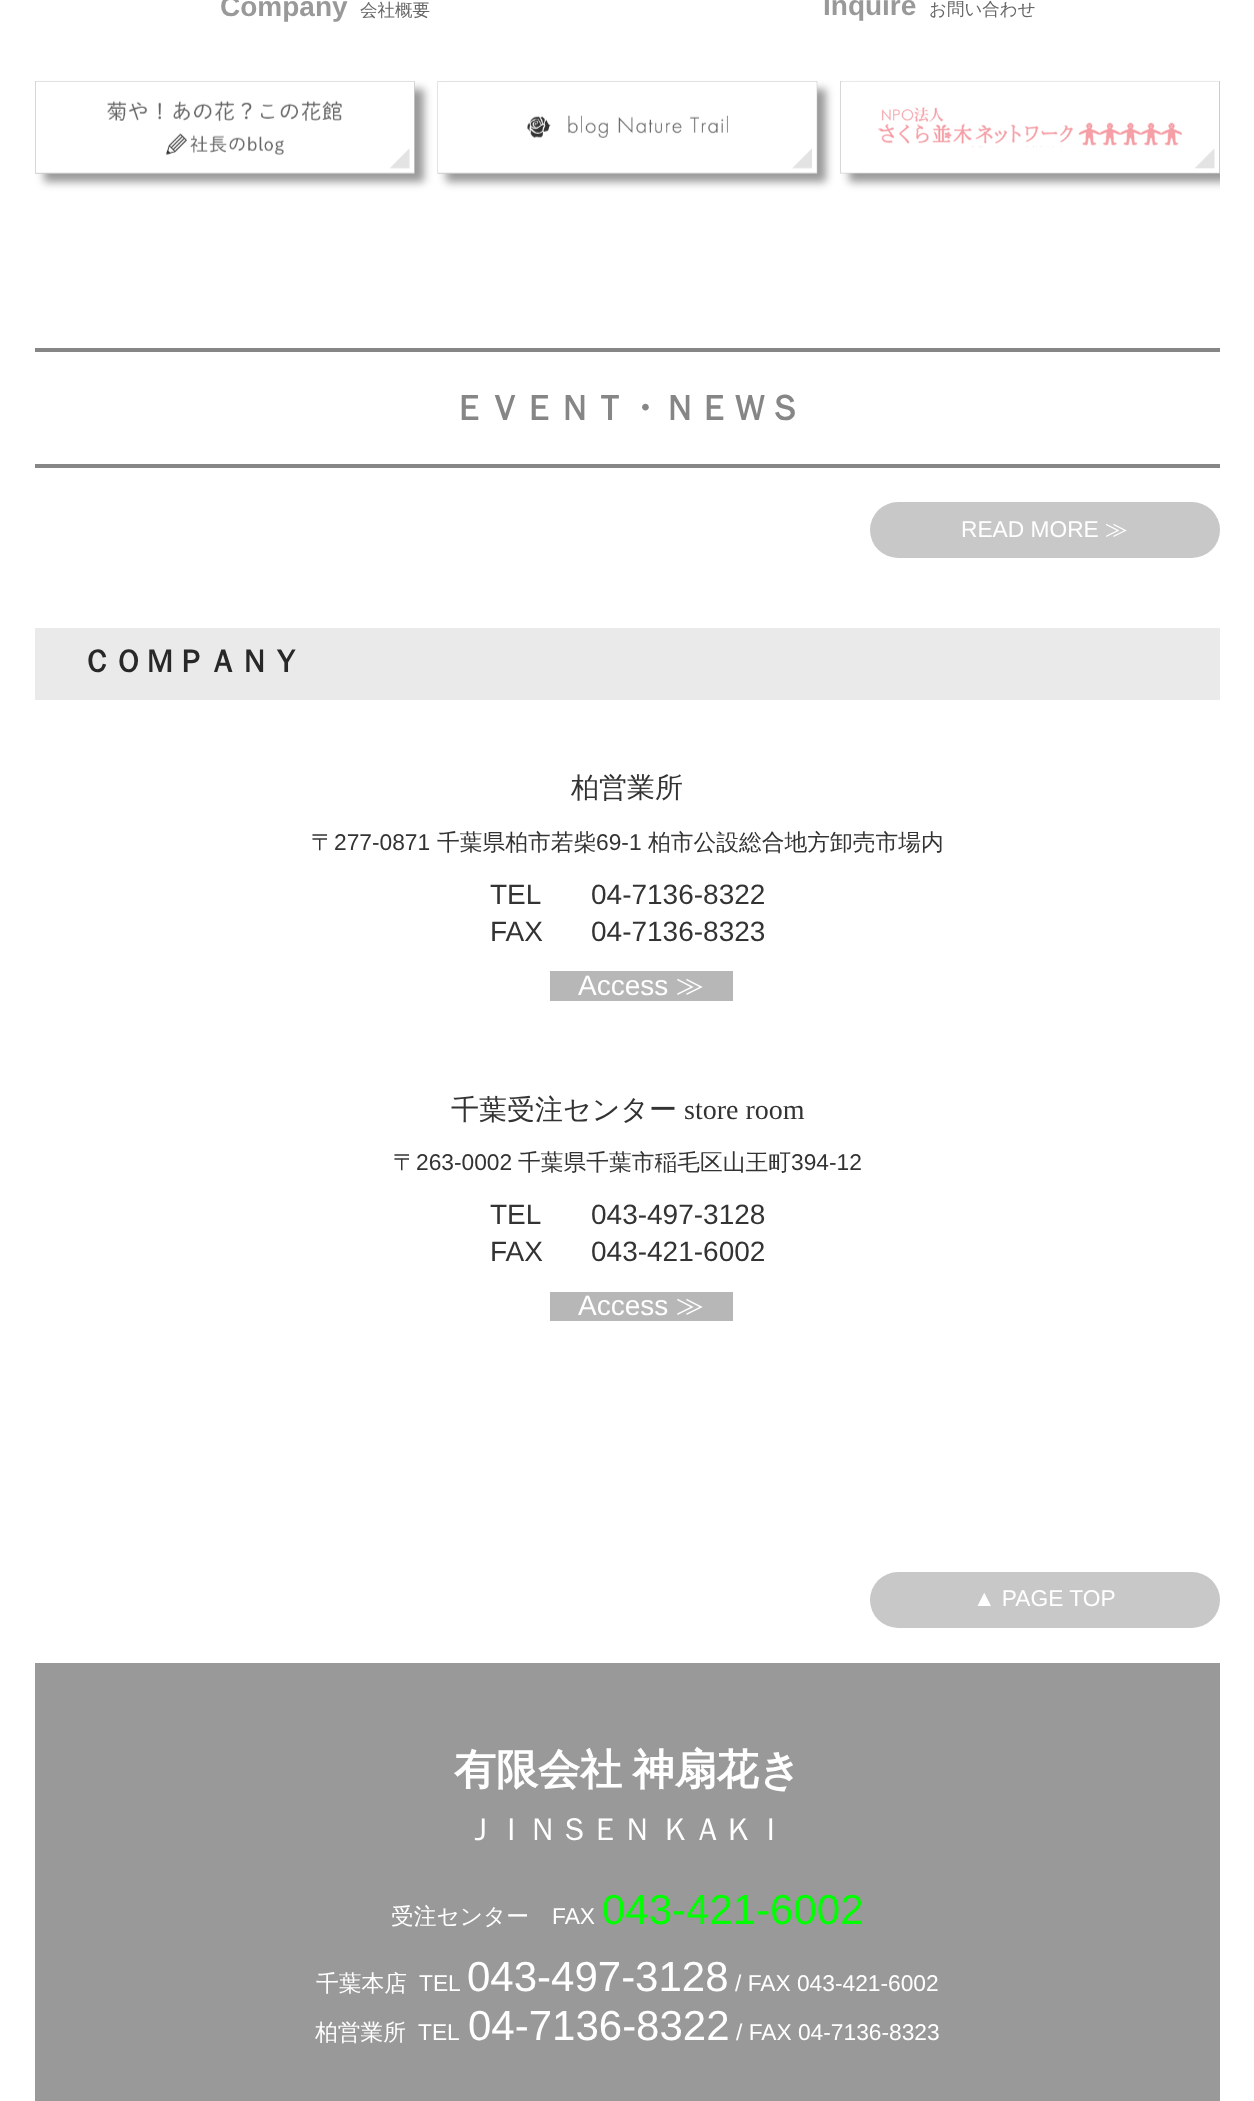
<svg xmlns="http://www.w3.org/2000/svg" width="1254" height="2101" viewBox="0 0 1254 2101">
  <defs>
    <clipPath id="clip1"><path d="M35 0h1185v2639H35z"/></clipPath>
  </defs>
  <rect width="100%" height="100%" fill="#fff"/>
  <path d="M44 89h380v93H44z" fill="#00000066" filter="blur(4.5px)"/>
  <image x="35" y="81" width="380" height="93" href="img/1.png"/>
  <path d="M446 89h380v93H446z" fill="#00000066" filter="blur(4.5px)"/>
  <image x="437" y="81" width="381" height="93" href="img/2.png"/>
  <g clip-path="url(#clip1)">
    <path d="M849 89h380v93H849z" fill="#00000066" filter="blur(4.5px)"/>
  </g>
  <image x="840" y="81" width="380" height="93" href="img/3.png"/>
  <path d="M35 348h1185v4H35z" fill="#868686"/>
  <path d="M35 464h1185v4H35z" fill="#868686"/>
  <rect x="870" y="502" width="350" height="56" rx="28" fill="#c8c8c8"/>
  <path d="M35 628h1185v72H35z" fill="#eaeaea"/>
  <path d="M550 971h183v30H550z" fill="#b7b7b7"/>
  <path d="M550 1292h183v29H550z" fill="#b7b7b7"/>
  <rect x="870" y="1572" width="350" height="56" rx="28" fill="#c8c8c8"/>
  <path d="M35 1663h1185v438H35z" fill="#999"/>
  <text x="220" y="16" font-family="Liberation Sans" font-size="28" font-weight="bold" fill="#999">Company</text>
  <text x="360" y="16" font-family="WenQuanYi Zen Hei" font-size="17.5" font-weight="500" fill="#666">会社概要</text>
  <text x="823" y="15" font-family="Liberation Sans" font-size="28" font-weight="bold" fill="#999">Inquire</text>
  <text x="929" y="15" font-family="WenQuanYi Zen Hei" font-size="17.5" font-weight="500" fill="#666">お問い合わせ</text>
  <text x="452" y="420" font-family="WenQuanYi Zen Hei" font-size="35" font-weight="bold" fill="#868686">ＥＶＥＮＴ・ＮＥＷＳ</text>
  <text x="961" y="537" font-family="Liberation Sans" font-size="22.75" fill="#fff">READ MORE</text>
  <text x="1105" y="537" font-family="WenQuanYi Zen Hei" font-size="22.75" font-weight="500" fill="#fff">≫</text>
  <text x="81" y="672" font-family="WenQuanYi Zen Hei" font-size="31.5" font-weight="bold" fill="#282828">ＣＯＭＰＡＮＹ</text>
  <text x="571" y="797" font-family="WenQuanYi Zen Hei" font-size="28" font-weight="500" fill="#333">柏営業所</text>
  <text x="311" y="850" font-family="WenQuanYi Zen Hei" font-size="22.75" font-weight="500" fill="#333">〒</text>
  <text x="334" y="850" font-family="Liberation Sans" font-size="22.75" fill="#333">277-0871</text>
  <text x="437" y="850" font-family="WenQuanYi Zen Hei" font-size="22.75" font-weight="500" fill="#333">千葉県柏市若柴</text>
  <text x="596" y="850" font-family="Liberation Sans" font-size="22.75" fill="#333">69-1</text>
  <text x="648" y="850" font-family="WenQuanYi Zen Hei" font-size="22.75" font-weight="500" fill="#333">柏市公設総合地方卸売市場内</text>
  <g font-family="Liberation Sans" font-size="28" fill="#333">
    <text x="490" y="904">TEL</text>
    <text x="591" y="904">04-7136-8322</text>
    <text x="490" y="941">FAX</text>
    <text x="591" y="941">04-7136-8323</text>
  </g>
  <text x="578" y="995" font-family="Liberation Sans" font-size="28" fill="#fff">Access</text>
  <text x="676" y="995" font-family="WenQuanYi Zen Hei" font-size="28" font-weight="500" fill="#fff">≫</text>
  <text x="451" y="1119" font-family="WenQuanYi Zen Hei" font-size="28" font-weight="500" fill="#333">千葉受注センター</text>
  <text x="684" y="1119" font-family="Liberation Serif" font-size="28" fill="#333">store room</text>
  <text x="393" y="1170" font-family="WenQuanYi Zen Hei" font-size="22.75" font-weight="500" fill="#333">〒</text>
  <text x="416" y="1170" font-family="Liberation Sans" font-size="22.75" fill="#333">263-0002</text>
  <text x="518" y="1170" font-family="WenQuanYi Zen Hei" font-size="22.75" font-weight="500" fill="#333">千葉県千葉市稲毛区山王町</text>
  <text x="791" y="1170" font-family="Liberation Sans" font-size="22.75" fill="#333">394-12</text>
  <g font-family="Liberation Sans" font-size="28" fill="#333">
    <text x="490" y="1224">TEL</text>
    <text x="591" y="1224">043-497-3128</text>
    <text x="490" y="1261">FAX</text>
    <text x="591" y="1261">043-421-6002</text>
  </g>
  <text x="578" y="1315" font-family="Liberation Sans" font-size="28" fill="#fff">Access</text>
  <text x="676" y="1315" font-family="WenQuanYi Zen Hei" font-size="28" font-weight="500" fill="#fff">≫</text>
  <text x="973" y="1606" font-family="Liberation Sans" font-size="22.75" fill="#fff">▲ PAGE TOP</text>
  <text x="454" y="1784" word-spacing="-2" font-family="WenQuanYi Zen Hei" font-size="42" font-weight="bold" fill="#fff">有限会社 神扇花き</text>
  <text x="464" y="1840" word-spacing="-2" font-family="WenQuanYi Zen Hei" font-size="31.5" font-weight="500" fill="#fff">ＪＩＮＳＥＮ ＫＡＫＩ</text>
  <text x="391" y="1924" font-family="WenQuanYi Zen Hei" font-size="22.75" font-weight="500" fill="#fff">受注センター</text>
  <text x="552" y="1924" font-family="Liberation Sans" font-size="22.75" fill="#fff">FAX</text>
  <text x="602" y="1924" font-family="Liberation Sans" font-size="42" fill="#00ff01">043-421-6002</text>
  <text x="316" y="1991" font-family="WenQuanYi Zen Hei" font-size="22.75" font-weight="500" fill="#fff">千葉本店</text>
  <text x="419" y="1991" font-family="Liberation Sans" font-size="22.75" fill="#fff">TEL</text>
  <text x="467" y="1991" font-family="Liberation Sans" font-size="42" fill="#fff">043-497-3128</text>
  <text x="735" y="1991" font-family="Liberation Sans" font-size="22.75" fill="#fff">/ FAX 043-421-6002</text>
  <text x="315" y="2040" font-family="WenQuanYi Zen Hei" font-size="22.75" font-weight="500" fill="#fff">柏営業所</text>
  <text x="418" y="2040" font-family="Liberation Sans" font-size="22.75" fill="#fff">TEL</text>
  <text x="468" y="2040" font-family="Liberation Sans" font-size="42" fill="#fff">04-7136-8322</text>
  <text x="736" y="2040" font-family="Liberation Sans" font-size="22.75" fill="#fff">/ FAX 04-7136-8323</text>
</svg>
